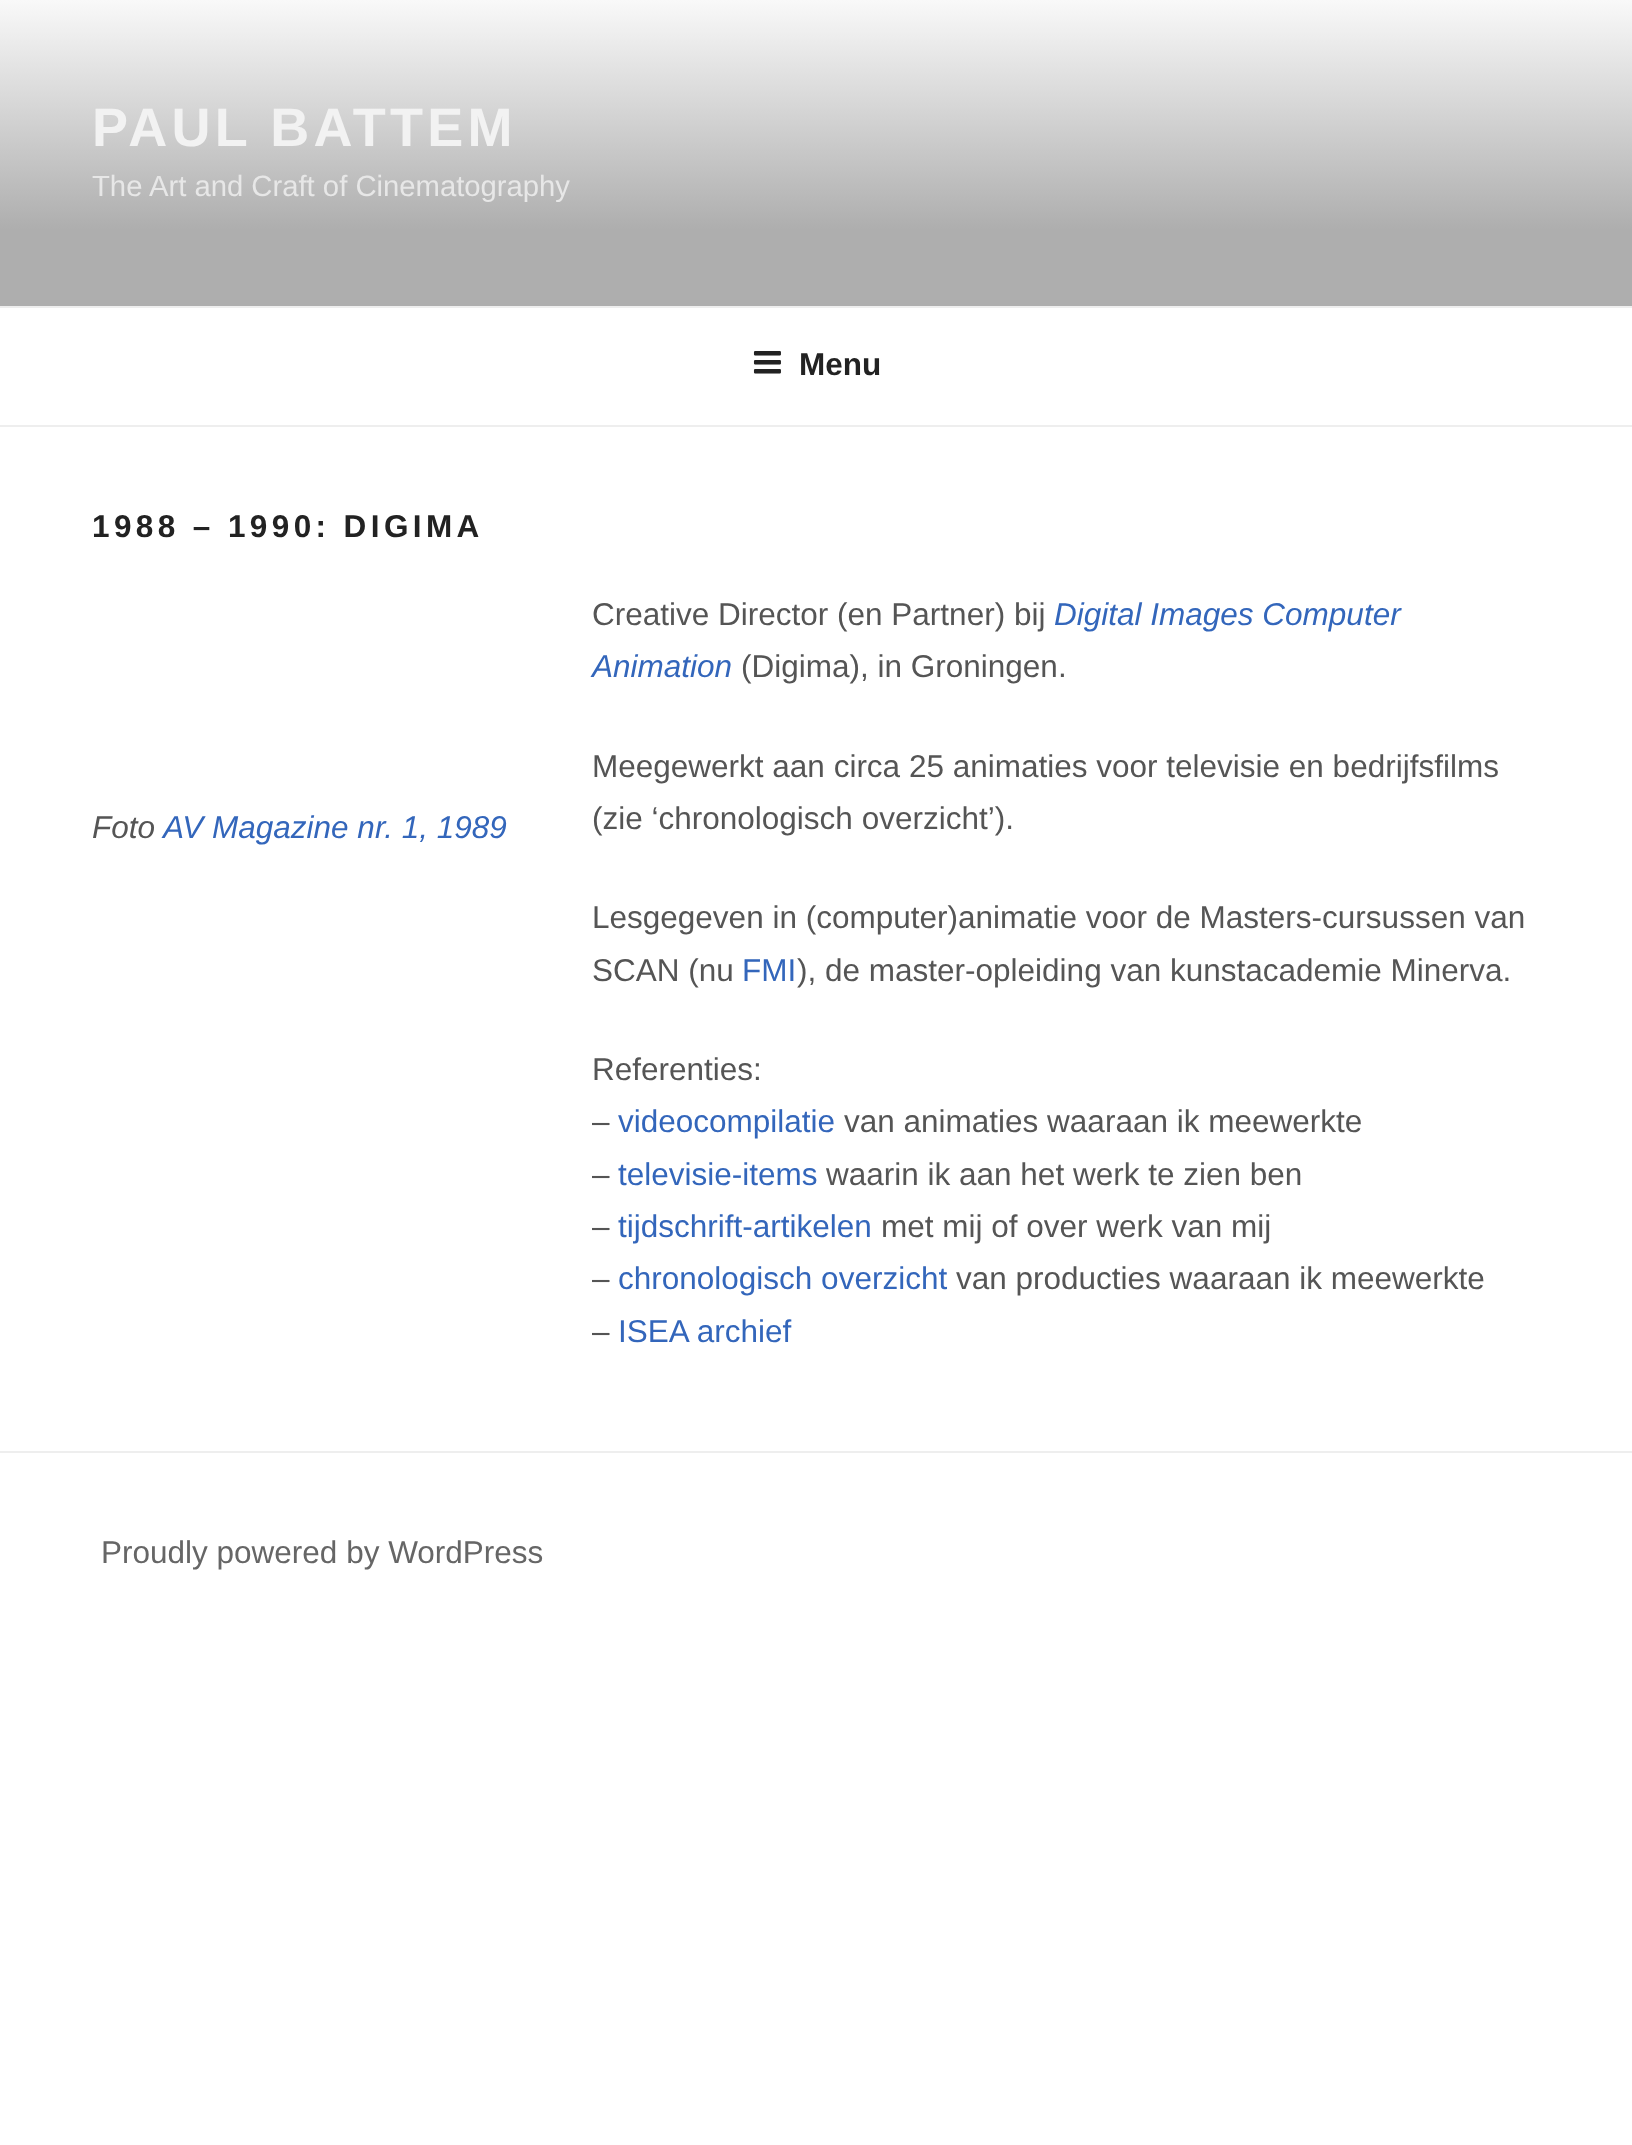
<svg xmlns="http://www.w3.org/2000/svg" width="1632" height="2145" viewBox="0 0 1632 2145">
  <defs>
    <linearGradient id="g1" gradientUnits="userSpaceOnUse" x1="817" y1="0" x2="817" y2="306"><stop offset="0" stop-color="#f9f9f9"/><stop offset="0.75" stop-color="#aeaeae"/><stop offset="1" stop-color="#aeaeae"/></linearGradient>
  </defs>
  <rect width="100%" height="100%" fill="#fff"/>
  <path d="M0 0h1632v306H0z" fill="url(#g1)"/>
  <path d="M0 306h1632v2H0z" fill="#eee"/>
  <path d="M0 425h1632v2H0z" fill="#eee"/>
  <image x="753" y="351" width="28" height="23" href="img/1.png"/>
  <path d="M0 1451h1632v2H0z" fill="#eee"/>
  <text x="92" y="146" font-family="Liberation Sans" font-size="54" font-weight="bold" letter-spacing="4.25" fill="#f2f2f2">PAUL BATTEM</text>
  <text x="92" y="196" font-family="Liberation Sans" font-size="29.25" fill="#e7e7e7">The Art and Craft of Cinematography</text>
  <text x="799" y="375" font-family="Liberation Sans" font-size="31.5" font-weight="bold" fill="#222">Menu</text>
  <text x="92" y="537" font-family="Liberation Sans" font-size="31.5" font-weight="bold" letter-spacing="4.4" fill="#222">1988 – 1990: DIGIMA</text>
  <text x="92" y="838" font-family="Liberation Sans" font-size="31.5" font-style="italic" fill="#555">Foto</text>
  <text x="163" y="838" font-family="Liberation Sans" font-size="31.5" font-style="italic" fill="#36b">AV Magazine nr. 1, 1989</text>
  <text x="592" y="625" font-family="Liberation Sans" font-size="31.5" fill="#555">Creative Director (en Partner) bij</text>
  <g font-family="Liberation Sans" font-size="31.5" font-style="italic" fill="#36b">
    <text x="1054" y="625">Digital Images Computer</text>
    <text x="592" y="677">Animation</text>
  </g>
  <g font-family="Liberation Sans" font-size="31.5" fill="#555">
    <text x="741" y="677">(Digima), in Groningen.</text>
    <text x="592" y="777">Meegewerkt aan circa 25 animaties voor televisie en bedrijfsfilms</text>
    <text x="592" y="829">(zie ‘chronologisch overzicht’).</text>
    <text x="592" y="928">Lesgegeven in (computer)animatie voor de Masters-cursussen van</text>
    <text x="592" y="981">SCAN (nu</text>
  </g>
  <text x="742" y="981" font-family="Liberation Sans" font-size="31.5" fill="#36b">FMI</text>
  <g font-family="Liberation Sans" font-size="31.5" fill="#555">
    <text x="797" y="981">), de master-opleiding van kunstacademie Minerva.</text>
    <text x="592" y="1080">Referenties:</text>
    <text x="592" y="1132">–</text>
  </g>
  <text x="618" y="1132" font-family="Liberation Sans" font-size="31.5" fill="#36b">videocompilatie</text>
  <g font-family="Liberation Sans" font-size="31.5" fill="#555">
    <text x="844" y="1132">van animaties waaraan ik meewerkte</text>
    <text x="592" y="1185">–</text>
  </g>
  <text x="618" y="1185" font-family="Liberation Sans" font-size="31.5" fill="#36b">televisie-items</text>
  <g font-family="Liberation Sans" font-size="31.5" fill="#555">
    <text x="826" y="1185">waarin ik aan het werk te zien ben</text>
    <text x="592" y="1237">–</text>
  </g>
  <text x="618" y="1237" font-family="Liberation Sans" font-size="31.5" fill="#36b">tijdschrift-artikelen</text>
  <g font-family="Liberation Sans" font-size="31.5" fill="#555">
    <text x="881" y="1237">met mij of over werk van mij</text>
    <text x="592" y="1289">–</text>
  </g>
  <text x="618" y="1289" font-family="Liberation Sans" font-size="31.5" fill="#36b">chronologisch overzicht</text>
  <g font-family="Liberation Sans" font-size="31.5" fill="#555">
    <text x="956" y="1289">van producties waaraan ik meewerkte</text>
    <text x="592" y="1342">–</text>
  </g>
  <text x="618" y="1342" font-family="Liberation Sans" font-size="31.5" fill="#36b">ISEA archief</text>
  <text x="101" y="1563" font-family="Liberation Sans" font-size="31.5" fill="#666">Proudly powered by WordPress</text>
</svg>
